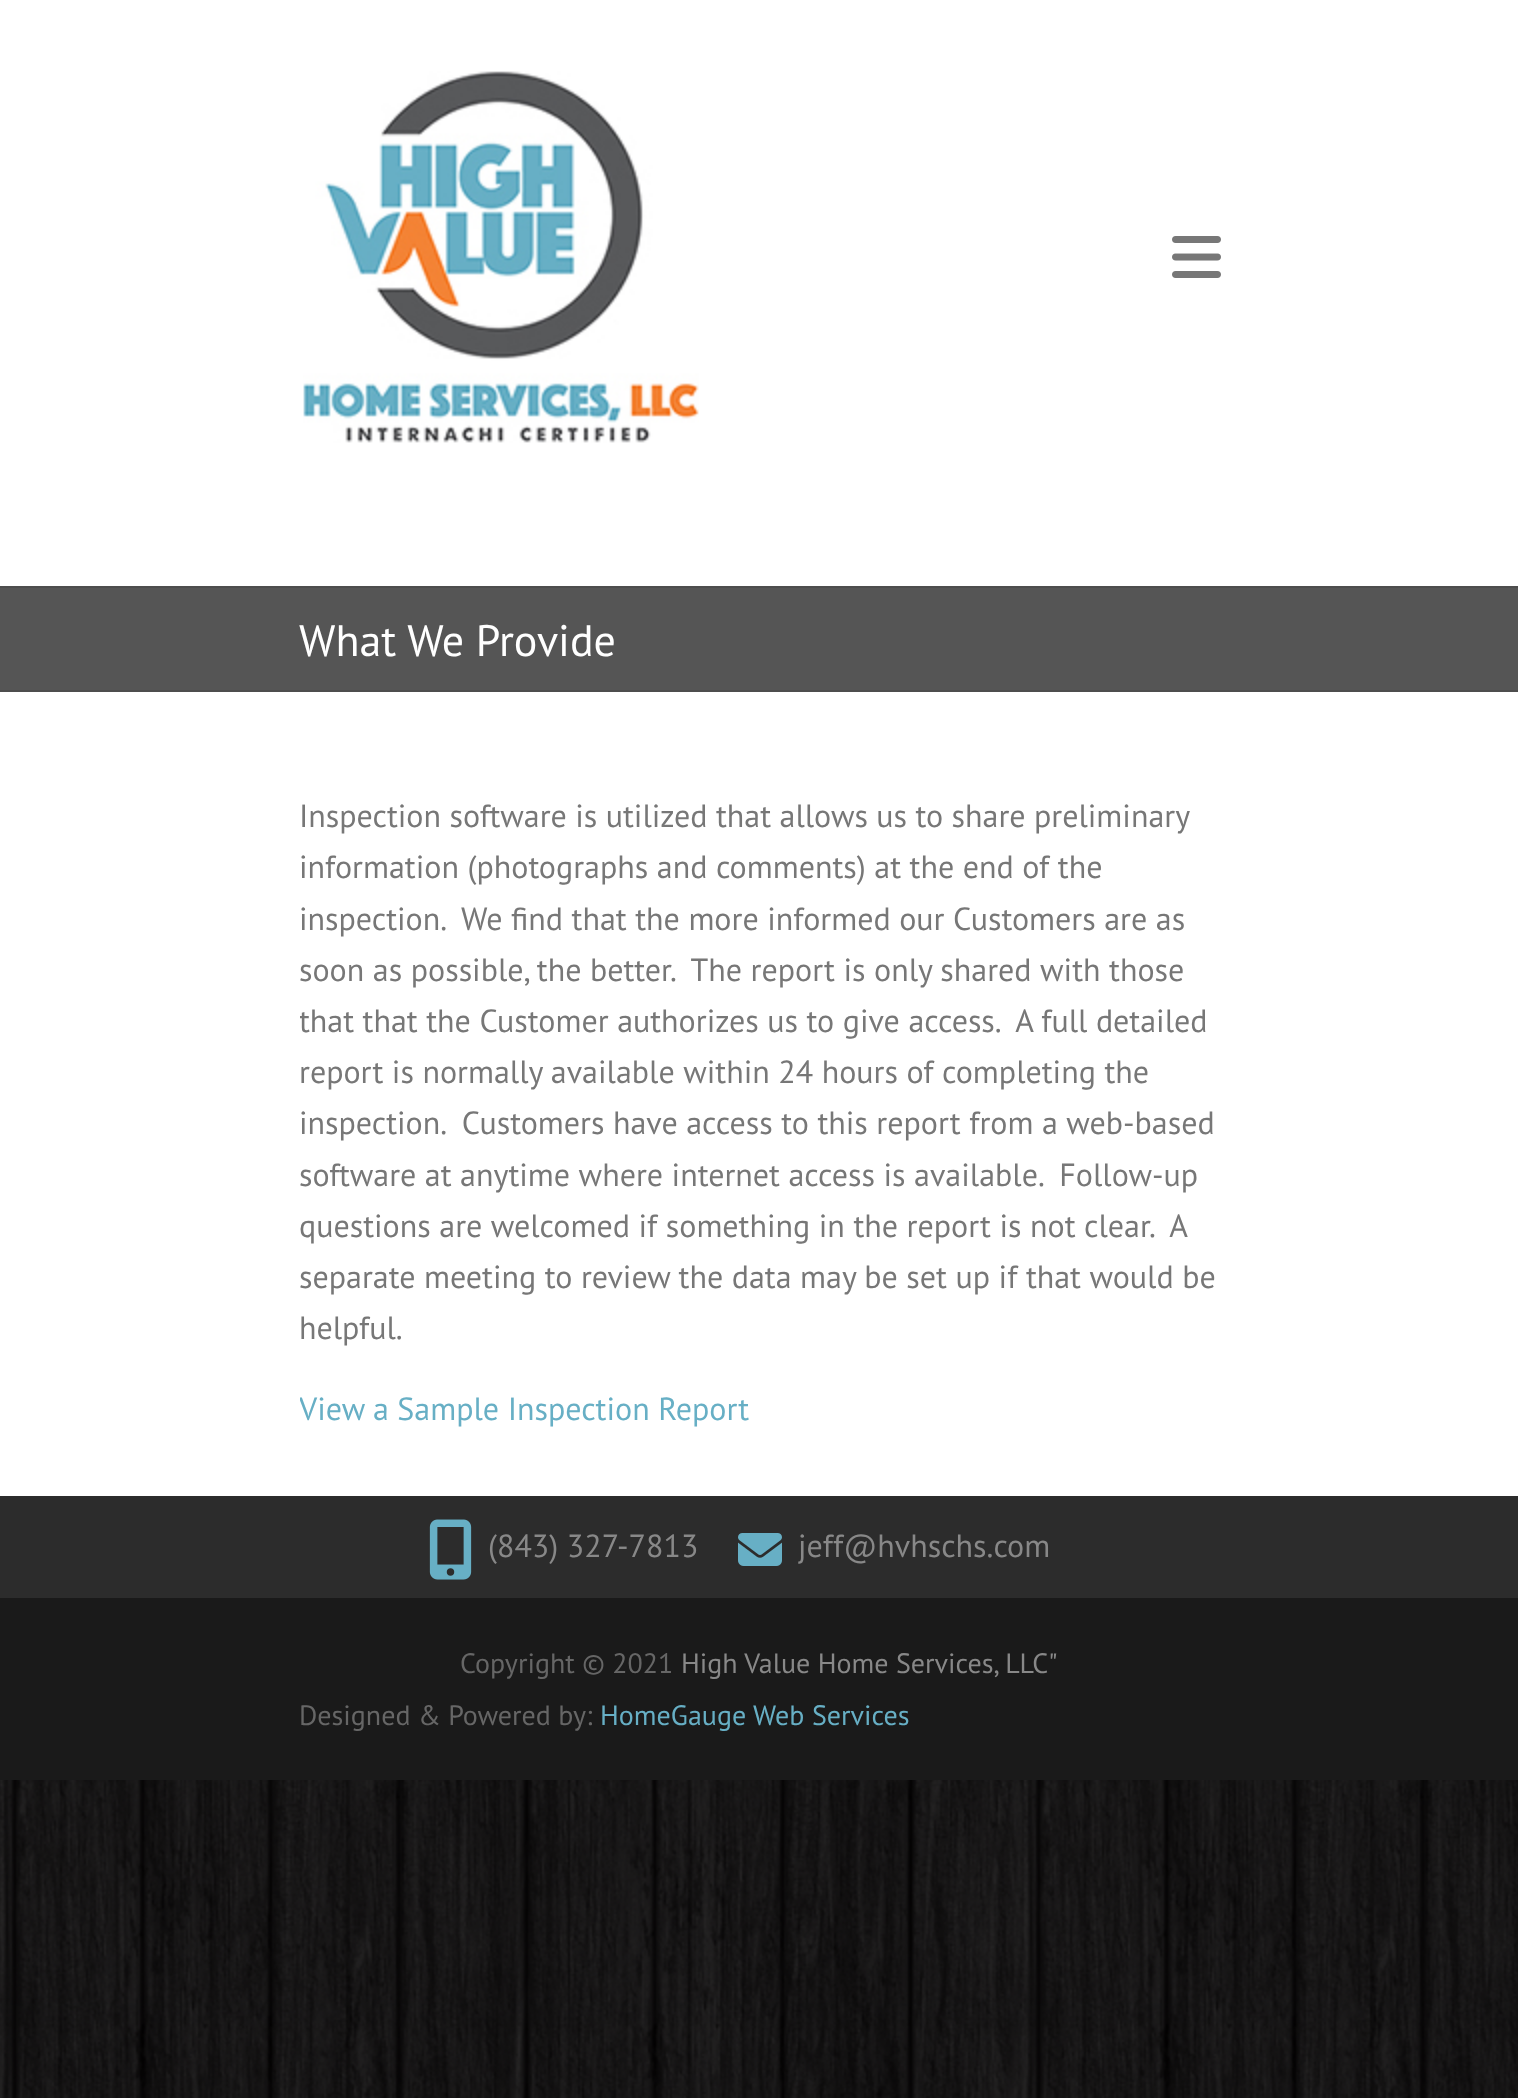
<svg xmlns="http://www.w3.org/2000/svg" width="1518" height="2098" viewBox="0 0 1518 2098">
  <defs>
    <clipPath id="clip1"><path d="M300 792h920v684H300z"/></clipPath>
  </defs>
  <rect width="100%" height="100%" fill="#fff"/>
  <image x="0" y="1780" width="1518" height="318" href="img/1.png"/>
  <image x="303" y="71" width="396" height="372" href="img/2.png"/>
  <image x="1172" y="236" width="49" height="42" href="img/3.png"/>
  <path d="M0 588h1518v102H0z" fill="#555"/>
  <path d="M0 586h1518v2H0z" fill="#4d4d4d"/>
  <path d="M0 690h1518v2H0z" fill="#4d4d4d"/>
  <path d="M0 1496h1518v102H0z" fill="#2c2c2c"/>
  <image x="429" y="1519" width="43" height="61" href="img/4.png"/>
  <image x="738" y="1533" width="44" height="33" href="img/5.png"/>
  <path d="M0 1598h1518v182H0z" fill="#1a1a1a"/>
  <text x="299" y="656" font-family="PT Sans" font-size="44" fill="#fff">What We Provide</text>
  <g font-family="PT Sans" font-size="32" fill="#777">
    <text x="299" y="827" word-spacing="-0.1">Inspection software is utilized that allows us to share preliminary</text>
    <text x="299" y="878">information (photographs and comments) at the end of the</text>
    <text x="299" y="930" xml:space="preserve">inspection.  We find that the more informed our Customers are as</text>
    <text x="299" y="981" xml:space="preserve">soon as possible, the better.  The report is only shared with those</text>
  </g>
  <g clip-path="url(#clip1)">
    <text x="299" y="1032" font-family="PT Sans" font-size="32" fill="#777" xml:space="preserve">that that the Customer authorizes us to give access.  A full detailed</text>
  </g>
  <g font-family="PT Sans" font-size="32" fill="#777">
    <text x="299" y="1083">report is normally available within 24 hours of completing the</text>
    <text x="299" y="1134" xml:space="preserve">inspection.  Customers have access to this report from a web-based</text>
    <text x="299" y="1186" xml:space="preserve">software at anytime where internet access is available.  Follow-up</text>
    <text x="299" y="1237" xml:space="preserve">questions are welcomed if something in the report is not clear.  A</text>
    <text x="299" y="1288">separate meeting to review the data may be set up if that would be</text>
    <text x="299" y="1339">helpful.</text>
  </g>
  <g clip-path="url(#clip1)">
    <text x="299" y="1420" font-family="PT Sans" font-size="32" fill="#67afc5">View a Sample Inspection Report</text>
  </g>
  <g font-family="PT Sans" font-size="32" fill="#888">
    <text x="488" y="1557">(843) 327-7813</text>
    <text x="798" y="1557">jeff@hvhschs.com</text>
  </g>
  <text x="460" y="1673" font-family="PT Sans" font-size="28" fill="#666">Copyright © 2021</text>
  <text x="681" y="1673" font-family="PT Sans" font-size="28" fill="#888">High Value Home Services, LLC"</text>
  <text x="299" y="1725" font-family="PT Sans" font-size="28" fill="#666">Designed &amp; Powered by:</text>
  <text x="600" y="1725" font-family="PT Sans" font-size="28" fill="#67afc5">HomeGauge Web Services</text>
</svg>
